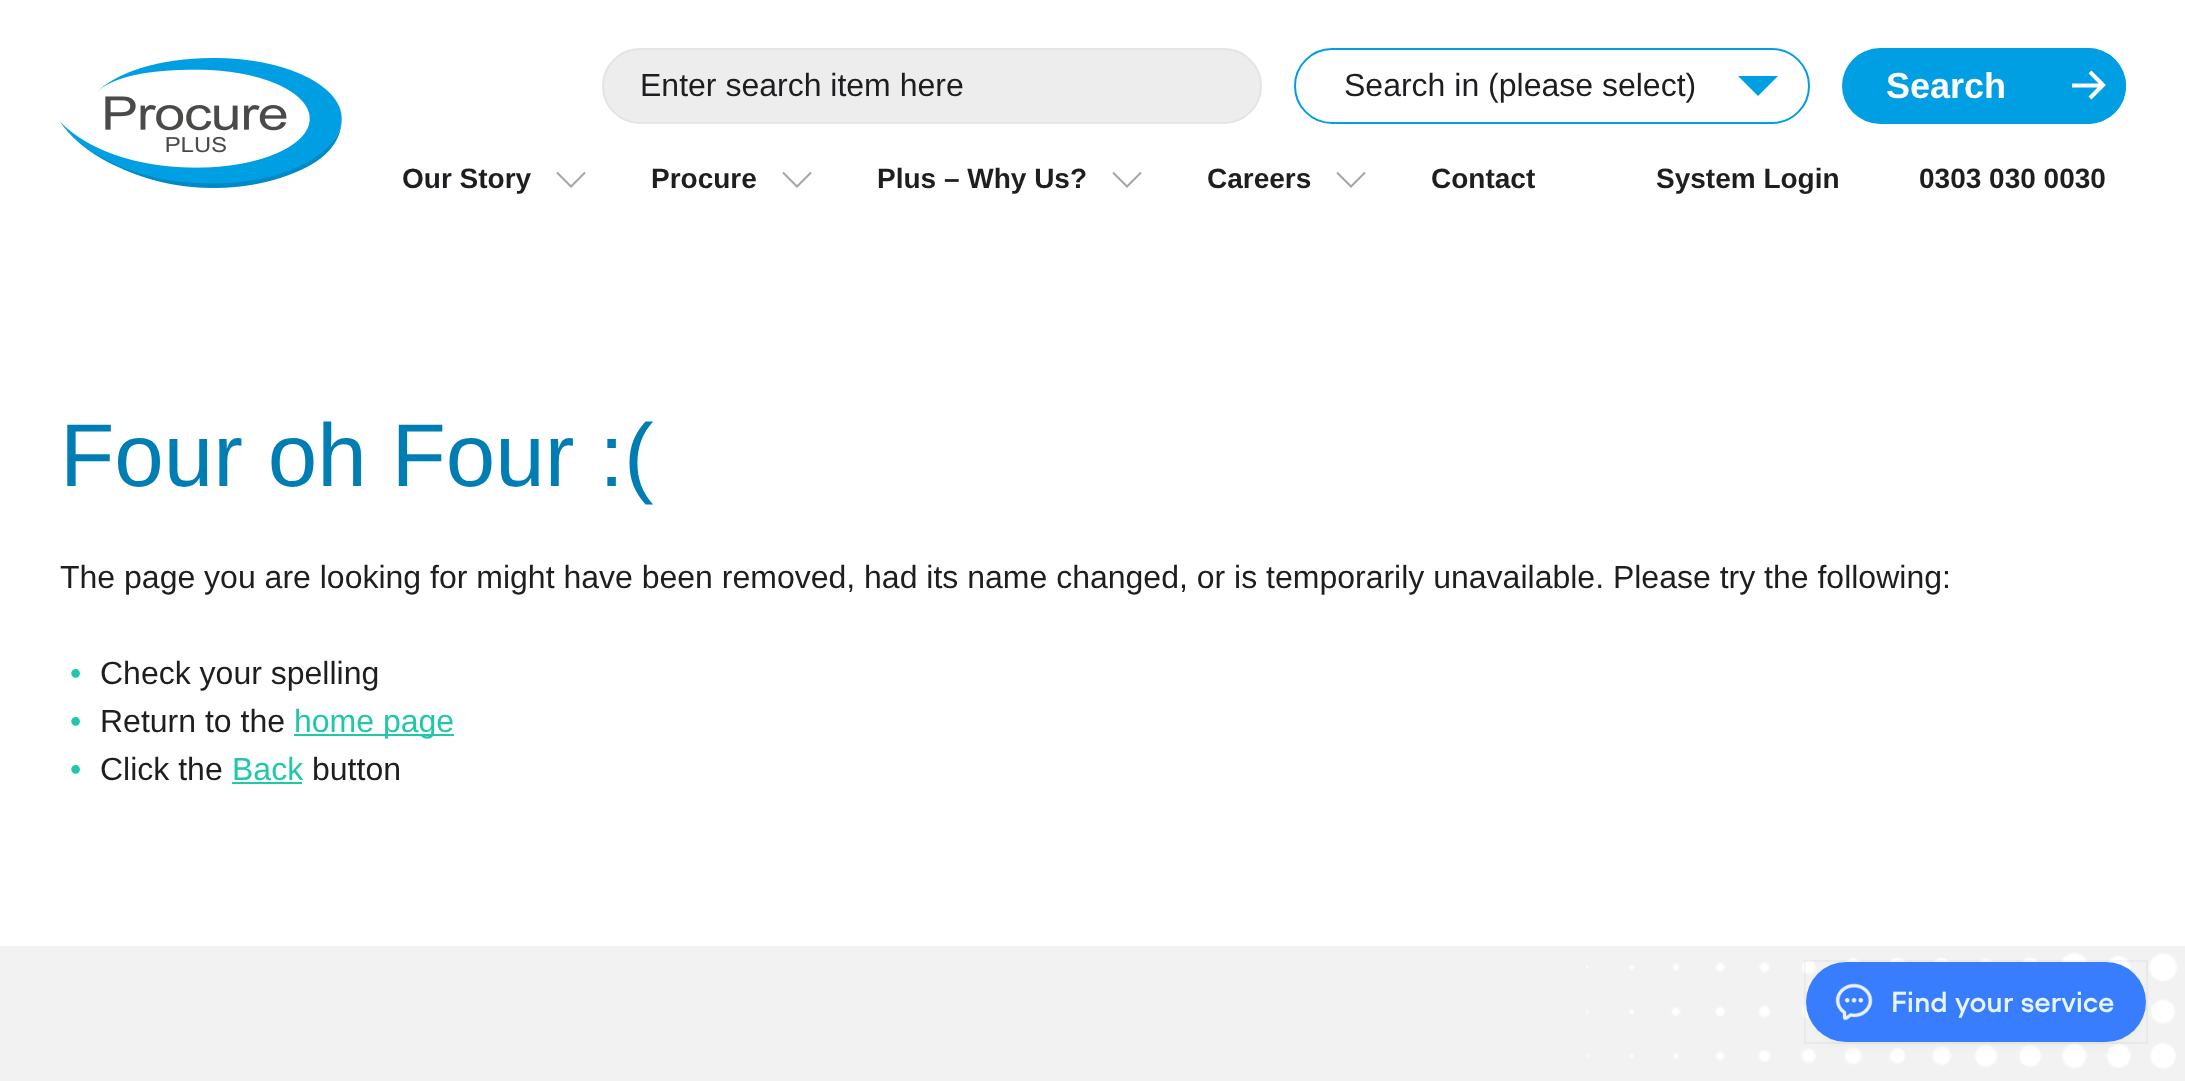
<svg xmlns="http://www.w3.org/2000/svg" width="2185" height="1081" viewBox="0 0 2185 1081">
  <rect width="100%" height="100%" fill="#fff"/>
  <image x="60" y="58" width="282" height="130" href="img/1.png"/>
  <rect x="603" y="49" width="658" height="74" rx="37" fill="#ededed" stroke="#e5e3e5" stroke-width="2"/>
  <path d="M1738 76L1758 96L1778 76" fill="#009ee2"/>
  <rect x="1295" y="49" width="514" height="74" rx="37" fill="none" stroke="#009ee2" stroke-width="2"/>
  <rect x="1842" y="48" width="284" height="76" rx="38" fill="#009ee2"/>
  <circle cx="2088" cy="86" r="38" fill="#009ee2"/>
  <path d="M2072 85.5H2103M2090 72L2103 85L2090 98" fill="none" stroke="#fff" stroke-width="4"/>
  <path d="M557 172.5L571 186.5L585 172.5" fill="none" stroke="#a5a5a5" stroke-width="2"/>
  <path d="M783 172.5L797 186.5L811 172.5" fill="none" stroke="#a5a5a5" stroke-width="2"/>
  <path d="M1113 172.5L1127 186.5L1141 172.5" fill="none" stroke="#a5a5a5" stroke-width="2"/>
  <path d="M1337 172.5L1351 186.5L1365 172.5" fill="none" stroke="#a5a5a5" stroke-width="2"/>
  <path d="M294 734h160v2H294z" fill="#22c7a9"/>
  <path d="M232 782h70v2H232z" fill="#22c7a9"/>
  <path d="M0 946h2185v135H0z" fill="#f2f2f2"/>
  <image x="1586" y="952" width="592" height="117" href="img/2.png"/>
  <rect x="1818" y="982" width="316" height="56" rx="28" fill="#161a1e14" filter="blur(8px)"/>
  <path d="M1805 961h342v82H1805z" fill="none" stroke="#161a1e0a" stroke-width="2"/>
  <rect x="1806" y="962" width="340" height="80" rx="40" fill="#397dff"/>
  <image x="1835" y="983" width="38" height="38" href="img/3.png"/>
  <g font-family="Liberation Sans" font-size="32" fill="#1e1e21">
    <text x="640" y="96">Enter search item here</text>
    <text x="1344" y="96">Search in (please select)</text>
  </g>
  <text x="1886" y="98" font-family="Liberation Sans" font-size="36" font-weight="bold" fill="#fff">Search</text>
  <g font-family="Liberation Sans" font-size="28" font-weight="bold" fill="#1e1e21">
    <text x="402" y="188">Our Story</text>
    <text x="651" y="188">Procure</text>
    <text x="877" y="188">Plus – Why Us?</text>
    <text x="1207" y="188">Careers</text>
    <text x="1431" y="188">Contact</text>
    <text x="1656" y="188">System Login</text>
    <text x="1919" y="188">0303 030 0030</text>
  </g>
  <text x="60" y="486" font-family="Liberation Sans" font-size="89" fill="#007db3">Four oh Four :(</text>
  <text x="60" y="588" font-family="Liberation Sans" font-size="32" fill="#1e1e21">The page you are looking for might have been removed, had its name changed, or is temporarily unavailable. Please try the following:</text>
  <text x="70" y="684" font-family="Liberation Sans" font-size="32" fill="#22c7a9">•</text>
  <text x="100" y="684" font-family="Liberation Sans" font-size="32" fill="#1e1e21">Check your spelling</text>
  <text x="70" y="732" font-family="Liberation Sans" font-size="32" fill="#22c7a9">•</text>
  <text x="100" y="732" font-family="Liberation Sans" font-size="32" fill="#1e1e21">Return to the</text>
  <g font-family="Liberation Sans" font-size="32" fill="#22c7a9">
    <text x="294" y="732">home page</text>
    <text x="70" y="780">•</text>
  </g>
  <text x="100" y="780" font-family="Liberation Sans" font-size="32" fill="#1e1e21">Click the</text>
  <text x="232" y="780" font-family="Liberation Sans" font-size="32" fill="#22c7a9">Back</text>
  <text x="312" y="780" font-family="Liberation Sans" font-size="32" fill="#1e1e21">button</text>
  <text x="1891" y="1012" font-family="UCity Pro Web" font-size="28" font-weight="600" fill="#e7f5fd">Find your service</text>
</svg>
